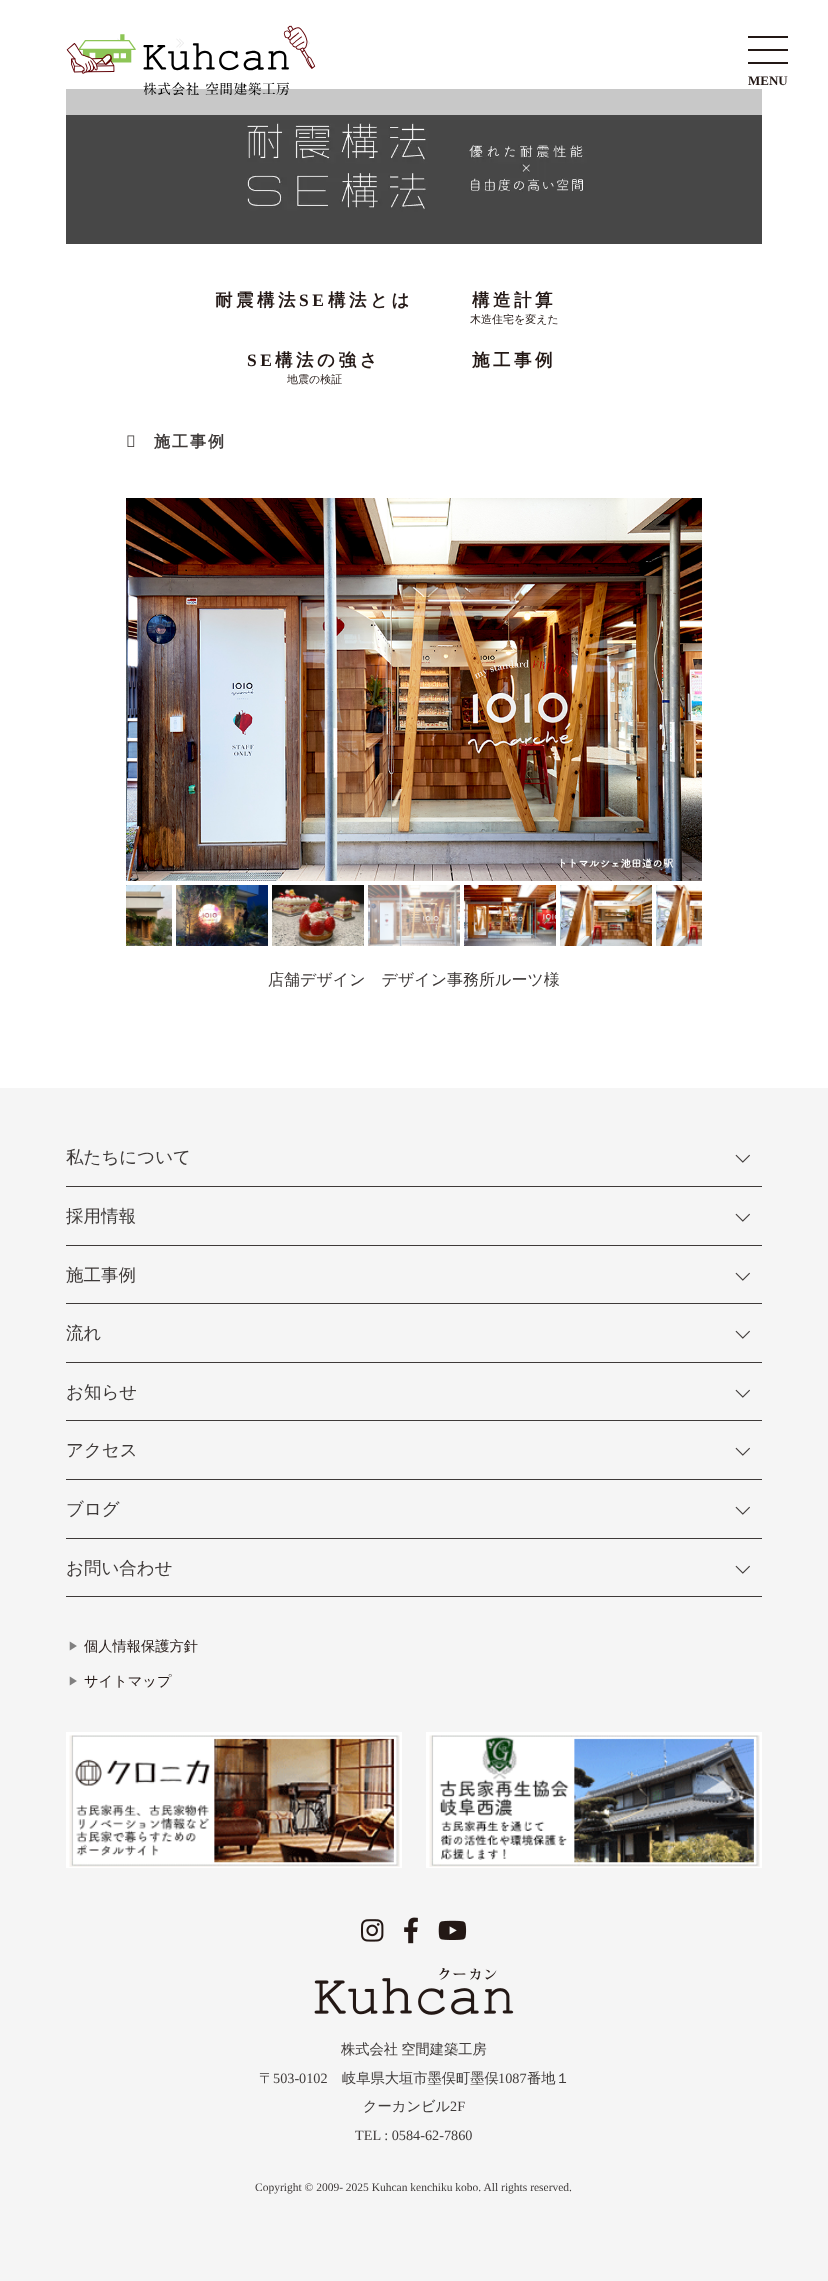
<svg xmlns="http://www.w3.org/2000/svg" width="828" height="2281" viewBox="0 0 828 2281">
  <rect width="100%" height="100%" fill="#fff"/>
  <image x="117" y="38" width="7" height="4" href="img/1.png"/>
  <image x="176" y="38" width="8" height="10" href="img/2.png"/>
  <image x="302" y="38" width="8" height="10" href="img/2.png"/>
  <image x="66" y="89" width="696" height="155" href="img/4.png"/>
  <path d="M66 38h696v77H66z" fill="#ffffffb3"/>
  <image x="66" y="25" width="250" height="71" href="img/3.png"/>
  <path d="M748 36h40v2H748z" fill="#231815"/>
  <path d="M748 49h40v2H748z" fill="#231815"/>
  <path d="M748 62h40v2H748z" fill="#231815"/>
  <image x="127" y="435" width="8" height="12" href="img/5.png"/>
  <image x="126" y="498" width="576" height="383" href="img/6.png"/>
  <image x="126" y="885" width="46" height="61" href="img/7.png"/>
  <image x="176" y="885" width="92" height="61" href="img/8.png"/>
  <image x="272" y="885" width="92" height="61" href="img/9.png"/>
  <image x="368" y="885" width="92" height="61" href="img/10.png"/>
  <image x="464" y="885" width="92" height="61" href="img/11.png"/>
  <image x="560" y="885" width="92" height="61" href="img/12.png"/>
  <image x="656" y="885" width="46" height="61" href="img/13.png"/>
  <path d="M0 1088h828v1193H0z" fill="#f5f5f5"/>
  <path d="M66 1186h696v1H66z" fill="#3e3a39"/>
  <image x="735" y="1154" width="15" height="9" href="img/14.png"/>
  <path d="M66 1245h696v1H66z" fill="#3e3a39"/>
  <image x="735" y="1213" width="15" height="9" href="img/14.png"/>
  <path d="M66 1303h696v1H66z" fill="#3e3a39"/>
  <image x="735" y="1272" width="15" height="9" href="img/14.png"/>
  <path d="M66 1362h696v1H66z" fill="#3e3a39"/>
  <image x="735" y="1330" width="15" height="9" href="img/14.png"/>
  <path d="M66 1420h696v1H66z" fill="#3e3a39"/>
  <image x="735" y="1389" width="15" height="9" href="img/14.png"/>
  <path d="M66 1479h696v1H66z" fill="#3e3a39"/>
  <image x="735" y="1447" width="15" height="9" href="img/14.png"/>
  <path d="M66 1538h696v1H66z" fill="#3e3a39"/>
  <image x="735" y="1506" width="15" height="9" href="img/14.png"/>
  <path d="M66 1596h696v1H66z" fill="#3e3a39"/>
  <image x="735" y="1565" width="15" height="9" href="img/14.png"/>
  <image x="66" y="1732" width="336" height="136" href="img/15.png"/>
  <image x="426" y="1732" width="336" height="136" href="img/16.png"/>
  <image x="361" y="1919" width="23" height="23" href="img/17.png"/>
  <image x="404" y="1917" width="14" height="27" href="img/18.png"/>
  <image x="438" y="1920" width="29" height="20" href="img/19.png"/>
  <image x="314" y="1968" width="200" height="47" href="img/20.png"/>
  <text x="748" y="85" font-family="Liberation Serif" font-size="13" font-weight="bold" fill="#231815">MENU</text>
  <text x="215" y="306" font-family="WenQuanYi Zen Hei" font-size="17.5" font-weight="bold" letter-spacing="3.5" fill="#231815">耐震構法</text>
  <text x="299" y="306" font-family="Liberation Serif" font-size="17.5" font-weight="bold" letter-spacing="3.5" fill="#231815">SE</text>
  <g font-family="WenQuanYi Zen Hei" font-size="17.5" font-weight="bold" letter-spacing="3.5" fill="#231815">
    <text x="328" y="306">構法とは</text>
    <text x="472" y="306">構造計算</text>
  </g>
  <text x="470" y="323" font-family="WenQuanYi Zen Hei" font-size="11" font-weight="500" fill="#231815">木造住宅を変えた</text>
  <text x="247" y="366" font-family="Liberation Serif" font-size="17.5" font-weight="bold" letter-spacing="3.5" fill="#231815">SE</text>
  <text x="275" y="366" font-family="WenQuanYi Zen Hei" font-size="17.5" font-weight="bold" letter-spacing="3.5" fill="#231815">構法の強さ</text>
  <text x="287" y="383" font-family="WenQuanYi Zen Hei" font-size="11" font-weight="500" fill="#231815">地震の検証</text>
  <text x="472" y="366" font-family="WenQuanYi Zen Hei" font-size="17.5" font-weight="bold" letter-spacing="3.5" fill="#231815">施工事例</text>
  <text x="154" y="447" font-family="WenQuanYi Zen Hei" font-size="16" font-weight="bold" letter-spacing="2" fill="#3e3a39">施工事例</text>
  <text x="268" y="985" font-family="WenQuanYi Zen Hei" font-size="16" font-weight="500" fill="#3e3a39">店舗デザイン　デザイン事務所ルーツ様</text>
  <g font-family="WenQuanYi Zen Hei" font-size="17.5" font-weight="500" fill="#3e3a39">
    <text x="66" y="1163">私たちについて</text>
    <text x="66" y="1222">採用情報</text>
    <text x="66" y="1281">施工事例</text>
    <text x="66" y="1339">流れ</text>
    <text x="66" y="1398">お知らせ</text>
    <text x="66" y="1456">アクセス</text>
    <text x="66" y="1515">ブログ</text>
    <text x="66" y="1574">お問い合わせ</text>
  </g>
  <text x="68" y="1650" font-family="WenQuanYi Zen Hei" font-size="11" font-weight="500" fill="#818080">▶︎</text>
  <text x="84" y="1651" font-family="WenQuanYi Zen Hei" font-size="14.25" font-weight="500" fill="#231815">個人情報保護方針</text>
  <text x="68" y="1685" font-family="WenQuanYi Zen Hei" font-size="11" font-weight="500" fill="#818080">▶︎</text>
  <text x="84" y="1686" font-family="WenQuanYi Zen Hei" font-size="14.25" font-weight="500" fill="#231815">サイトマップ</text>
  <g font-family="WenQuanYi Zen Hei" font-size="14.25" font-weight="500" fill="#3e3a39">
    <text x="341" y="2054" word-spacing="-1">株式会社 空間建築工房</text>
    <text x="259" y="2083">〒</text>
  </g>
  <text x="273" y="2083" font-family="Liberation Serif" font-size="14.25" fill="#3e3a39">503-0102</text>
  <text x="342" y="2083" font-family="WenQuanYi Zen Hei" font-size="14.25" font-weight="500" fill="#3e3a39">岐阜県大垣市墨俣町墨俣</text>
  <text x="498" y="2083" font-family="Liberation Serif" font-size="14.25" fill="#3e3a39">1087</text>
  <g font-family="WenQuanYi Zen Hei" font-size="14.25" font-weight="500" fill="#3e3a39">
    <text x="527" y="2083">番地１</text>
    <text x="363" y="2111">クーカンビル</text>
  </g>
  <g font-family="Liberation Serif" font-size="14.25" fill="#3e3a39">
    <text x="450" y="2111">2F</text>
    <text x="355" y="2140">TEL : 0584-62-7860</text>
  </g>
  <text x="255" y="2191" font-family="Liberation Serif" font-size="11.5" fill="#3e3a39">Copyright © 2009- 2025 Kuhcan kenchiku kobo. All rights reserved.</text>
</svg>
